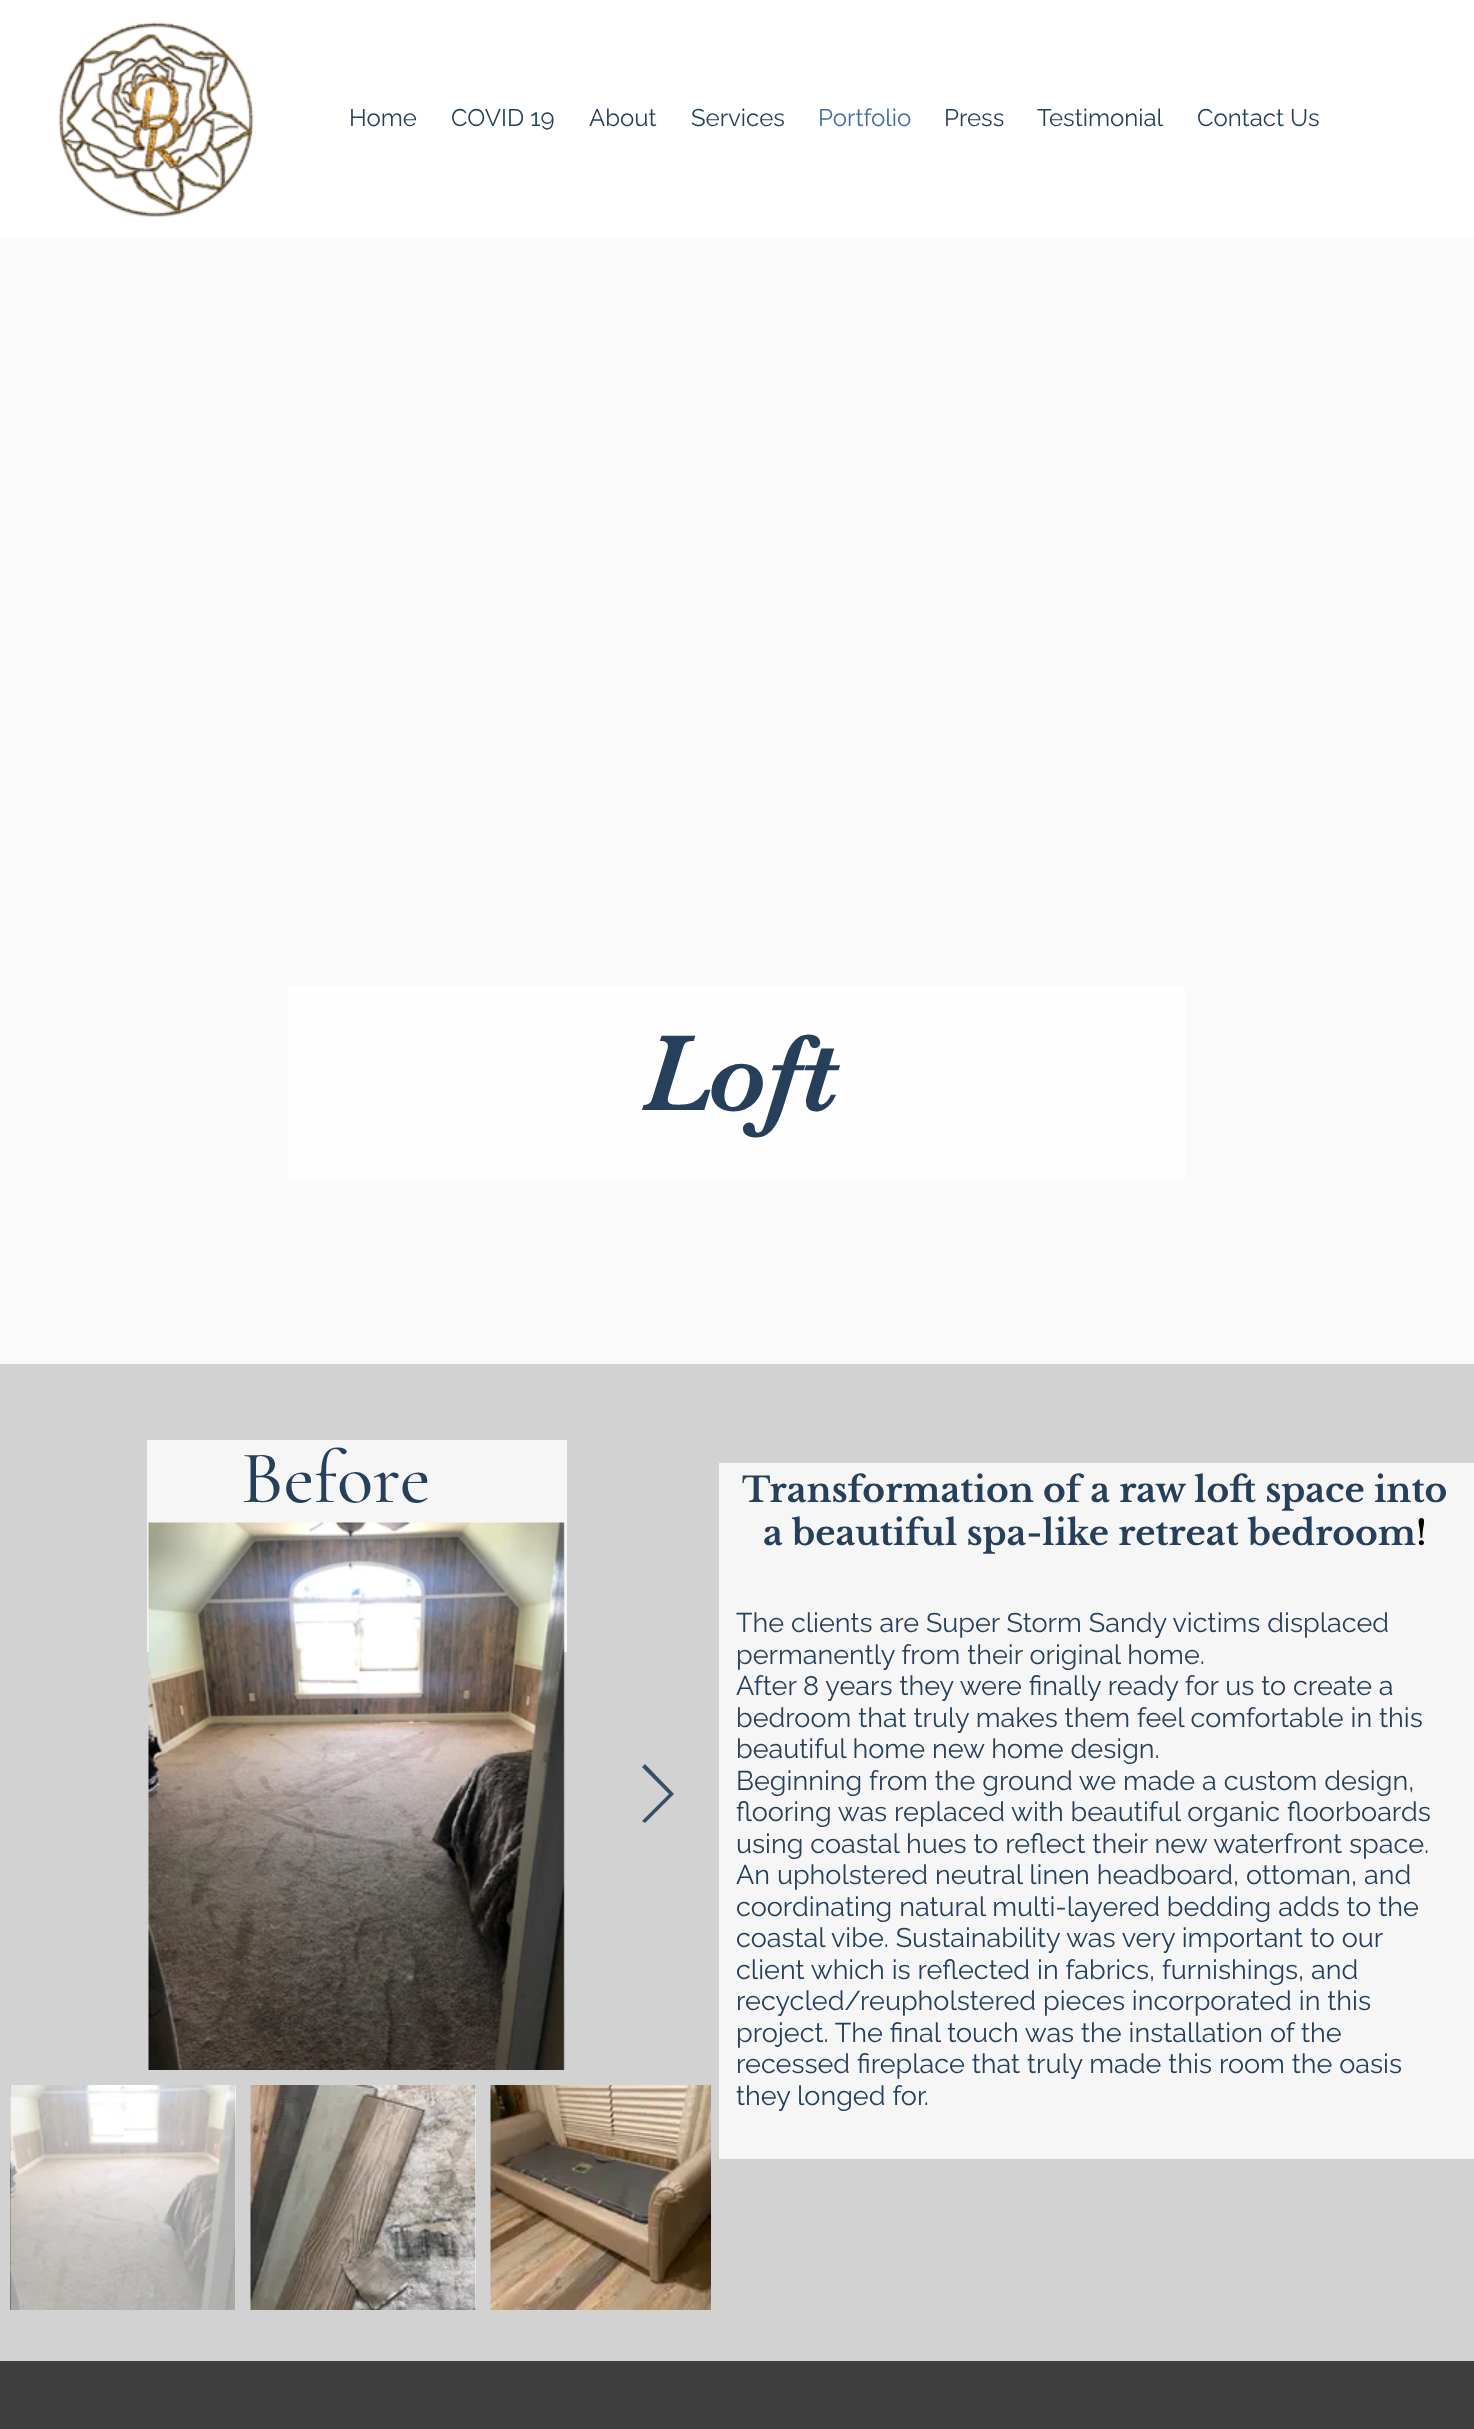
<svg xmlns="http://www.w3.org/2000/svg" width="1474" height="2429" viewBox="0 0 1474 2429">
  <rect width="100%" height="100%" fill="#fafafa"/>
  <path d="M0 0h1474v239H0z" fill="#fff"/>
  <image x="58" y="22" width="196" height="195" href="img/1.png"/>
  <path d="M288 986h897v195H288z" fill="#fefefe"/>
  <path d="M0 1364h1474v997H0z" fill="#d2d2d2"/>
  <path d="M147 1440h420v212H147z" fill="#f6f6f6"/>
  <path d="M719 1463h755v696H719z" fill="#f6f6f6"/>
  <image x="148" y="1522" width="417" height="548" href="img/2.png"/>
  <path d="M642 1767L645 1764L674 1794L645 1823L642 1821L669 1794Z" fill="#374e67"/>
  <path d="M235 2085h1v225H235z" fill="#fff"/>
  <image x="10" y="2085" width="226" height="225" href="img/3.png"/>
  <path d="M475 2085h1v225H475z" fill="#fff"/>
  <image x="250" y="2085" width="226" height="225" href="img/4.png"/>
  <image x="490" y="2085" width="221" height="225" href="img/5.png"/>
  <path d="M0 2361h1474v68H0z" fill="#3e3e3e"/>
  <g font-family="Raleway" font-size="24" fill="#263f5b">
    <text x="349" y="126">Home</text>
    <text x="451" y="126">COVID 19</text>
    <text x="589" y="126">About</text>
    <text x="691" y="126">Services</text>
  </g>
  <text x="818" y="126" font-family="Raleway" font-size="24" fill="#426e9e">Portfolio</text>
  <g font-family="Raleway" font-size="24" fill="#263f5b">
    <text x="944" y="126">Press</text>
    <text x="1037" y="126">Testimonial</text>
    <text x="1197" y="126">Contact Us</text>
  </g>
  <text x="642" y="1110" font-family="'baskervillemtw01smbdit'" font-size="112" fill="#263f5b">Loft</text>
  <text x="241" y="1502" font-family="Cormorant Garamond" font-size="75" font-weight="500" fill="#263f5b">Before</text>
  <g font-family="Libre Baskerville" font-size="34.5" font-weight="bold" fill="#263f5b">
    <text x="742" y="1502">Transformation of a raw loft space into</text>
    <text x="763" y="1545">a beautiful spa-like retreat bedroom</text>
  </g>
  <text x="1416" y="1545" font-family="Libre Baskerville" font-size="34.5" font-weight="bold" fill="#000">!</text>
  <g font-family="Raleway" font-size="27" fill="#263f5b">
    <text x="736" y="1632">The clients are Super Storm Sandy victims displaced</text>
    <text x="736" y="1664">permanently from their original home.</text>
    <text x="736" y="1695">After 8 years they were finally ready for us to create a</text>
    <text x="736" y="1727">bedroom that truly makes them feel comfortable in this</text>
    <text x="736" y="1758">beautiful home new home design.</text>
    <text x="736" y="1790">Beginning from the ground we made a custom design,</text>
    <text x="736" y="1821">flooring was replaced with beautiful organic floorboards</text>
    <text x="736" y="1853">using coastal hues to reflect their new waterfront space.</text>
    <text x="736" y="1884">An upholstered neutral linen headboard, ottoman, and</text>
    <text x="736" y="1916">coordinating natural multi-layered bedding adds to the</text>
    <text x="736" y="1947">coastal vibe. Sustainability was very important to our</text>
    <text x="736" y="1979">client which is reflected in fabrics, furnishings, and</text>
    <text x="736" y="2010">recycled/reupholstered pieces incorporated in this</text>
    <text x="736" y="2042">project. The final touch was the installation of the</text>
    <text x="736" y="2073">recessed fireplace that truly made this room the oasis</text>
    <text x="736" y="2105">they longed for.</text>
  </g>
</svg>
